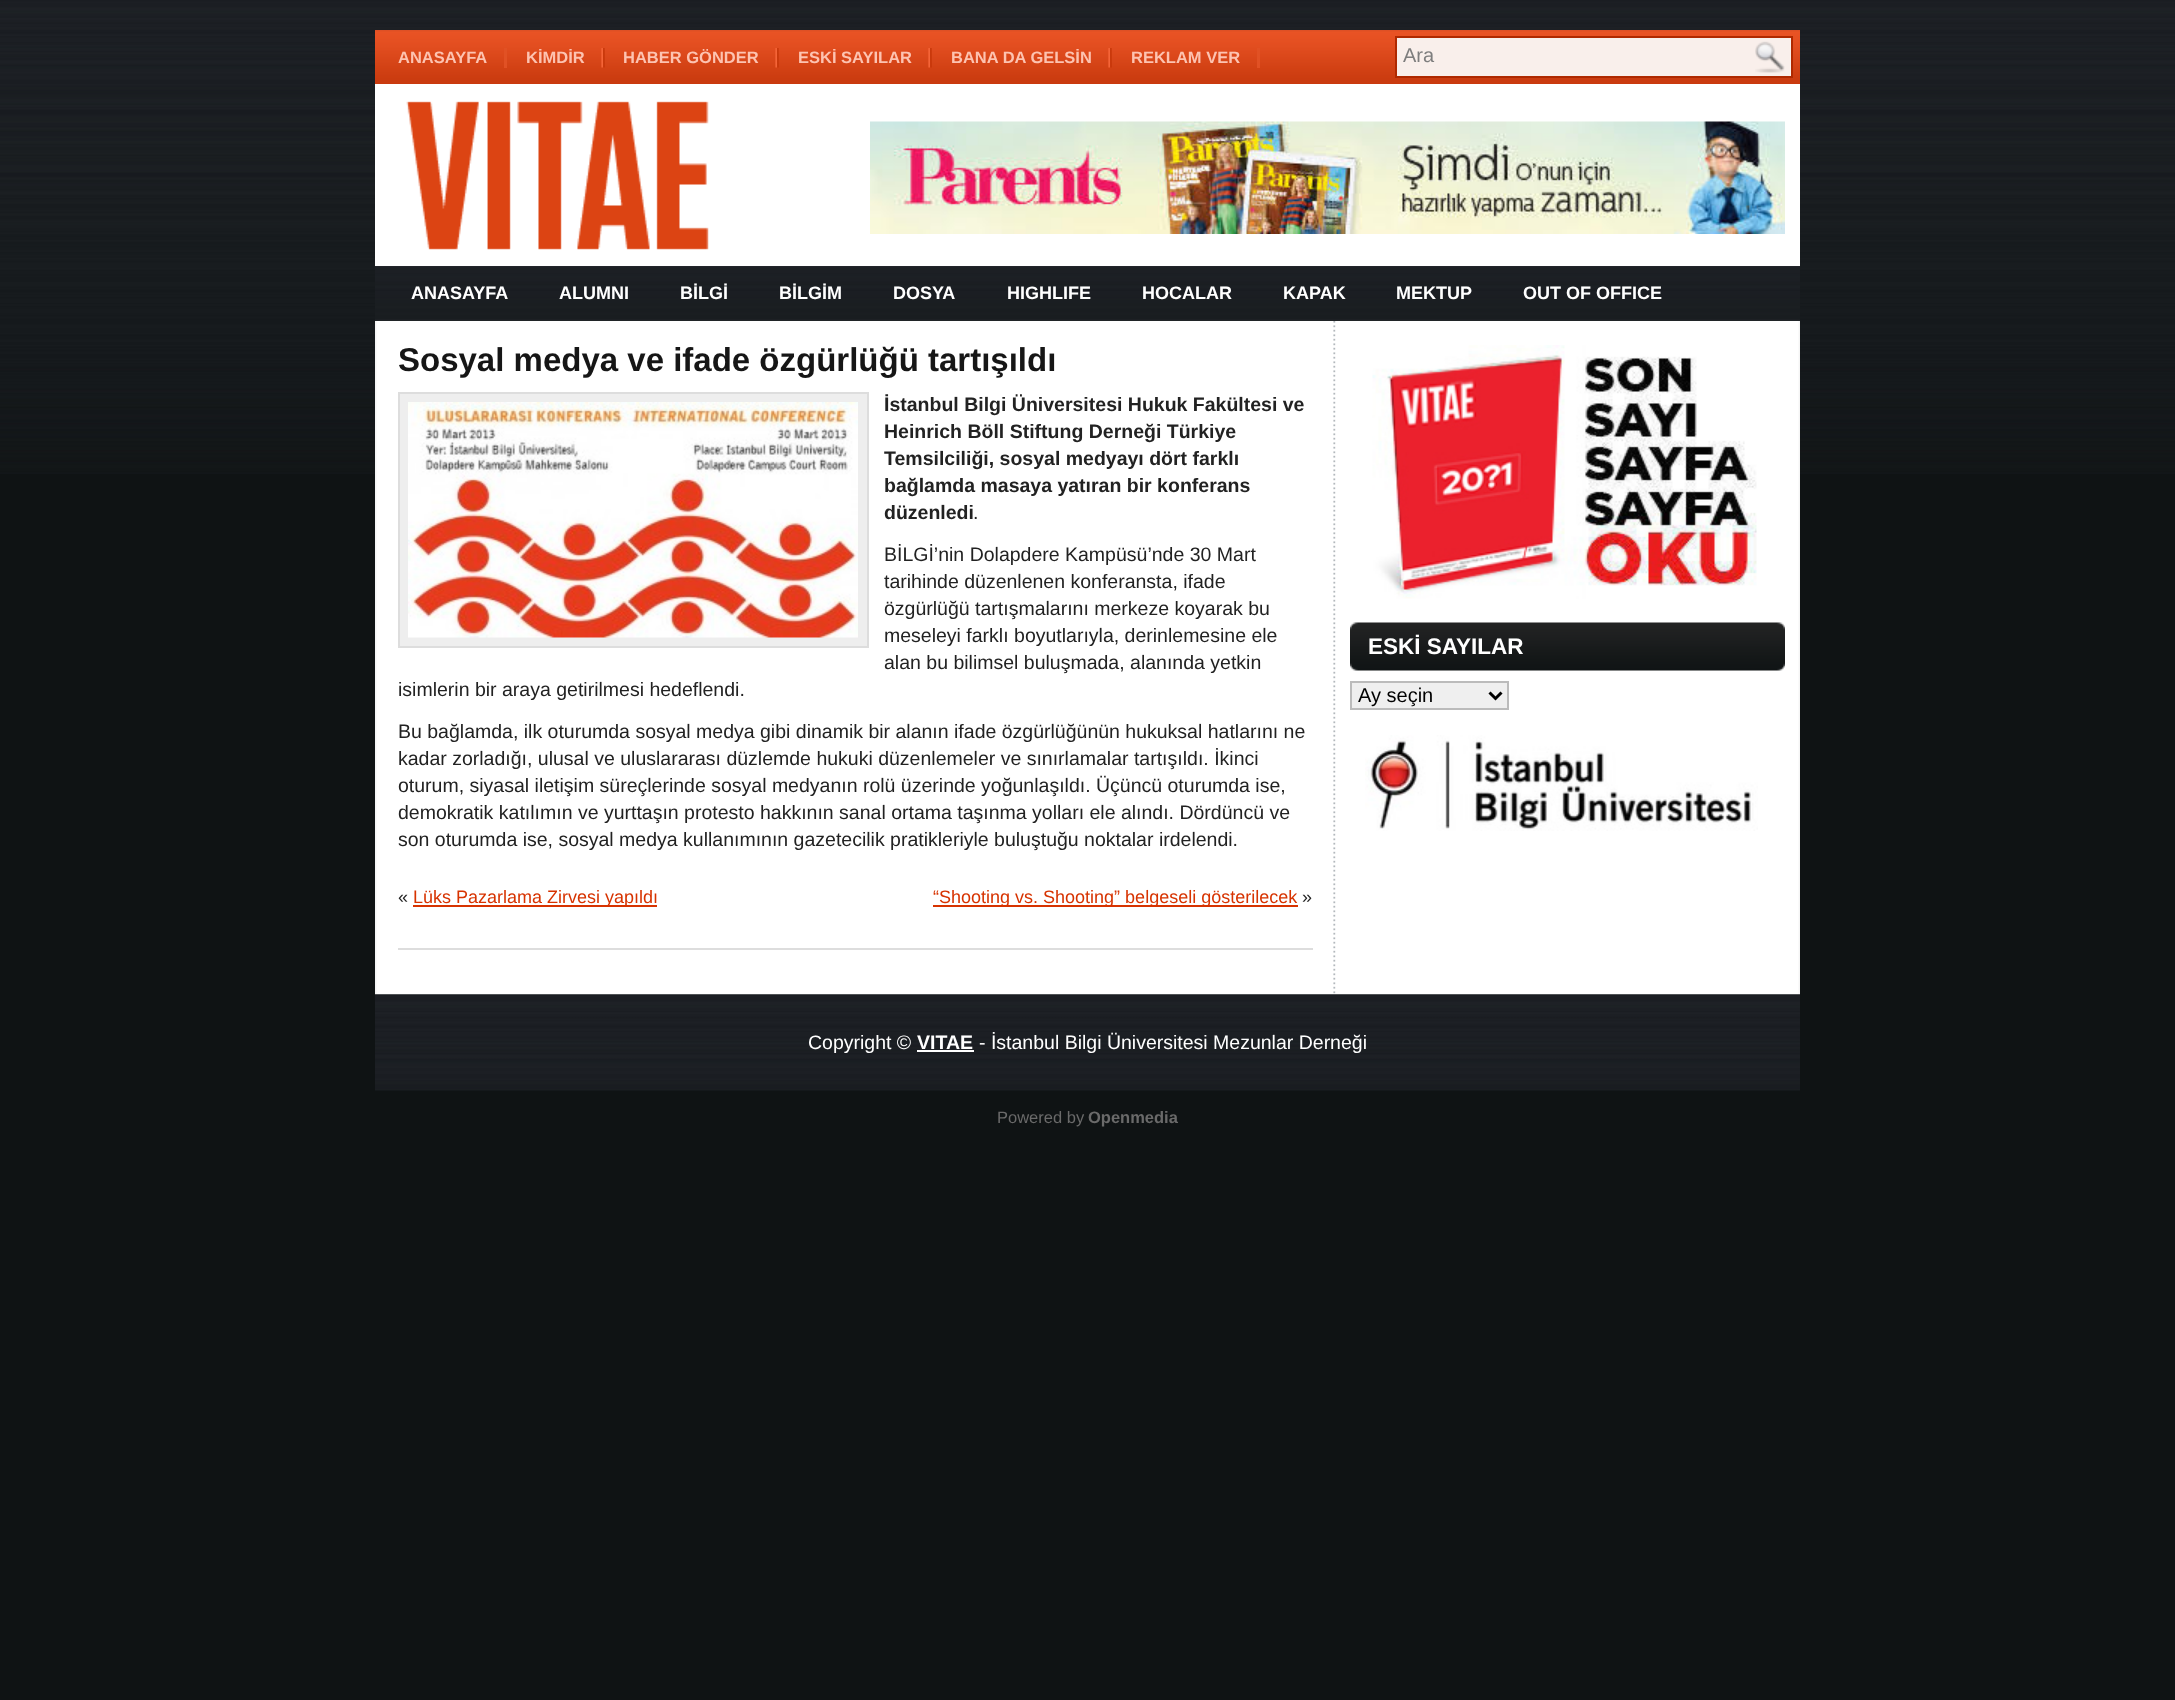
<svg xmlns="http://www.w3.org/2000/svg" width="2175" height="1700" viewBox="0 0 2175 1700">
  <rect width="100%" height="100%" fill="#0f1314"/>
  <image x="0" y="0" width="2175" height="474" href="img/1.png"/>
  <image x="375" y="30" width="1425" height="54" href="img/2.png"/>
  <path d="M504 48h3v20H504z" fill="#e15124"/>
  <image x="601" y="48" width="4" height="20" href="img/3.png"/>
  <image x="775" y="48" width="4" height="20" href="img/3.png"/>
  <image x="928" y="48" width="4" height="20" href="img/3.png"/>
  <image x="1108" y="48" width="4" height="20" href="img/3.png"/>
  <path d="M1257 48h3v20H1257z" fill="#e15124"/>
  <path d="M1396 37h396v40H1396z" fill="#f9efeb" stroke="#af2900" stroke-width="2"/>
  <image x="1755" y="41" width="30" height="32" href="img/4.png"/>
  <path d="M375 84h1425v182H375z" fill="#fff"/>
  <image x="406" y="101" width="303" height="149" href="img/5.png"/>
  <image x="870" y="121" width="915" height="113" href="img/6.png"/>
  <image x="375" y="266" width="1425" height="55" href="img/7.png"/>
  <image x="375" y="321" width="1425" height="674" href="img/8.png"/>
  <path d="M398 948h915v2H398z" fill="#ddd"/>
  <path d="M399 393h469v254H399z" fill="#eee" stroke="#ddd" stroke-width="2"/>
  <image x="408" y="402" width="450" height="236" href="img/9.png"/>
  <path d="M413 905h244v2H413z" fill="#d73300"/>
  <path d="M933 905h365v2H933z" fill="#d73300"/>
  <image x="1372" y="345" width="385" height="254" href="img/10.png"/>
  <image x="1350" y="622" width="435" height="49" href="img/11.png"/>
  <path d="M1351 682h157v27H1351z" fill="#efefef" stroke="#bbb" stroke-width="2"/>
  <path d="M1489.5 692.5L1495.5 698.5L1501.5 692.5" fill="none" stroke="#000" stroke-width="3"/>
  <image x="1365" y="735" width="393" height="96" href="img/12.png"/>
  <image x="375" y="994" width="1425" height="97" href="img/13.png"/>
  <path d="M917 1050h57v2H917z" fill="#fff"/>
  <g font-family="Liberation Sans" font-size="16.5" font-weight="bold" fill="#fdc3b1">
    <text x="398" y="63">ANASAYFA</text>
    <text x="526" y="63">KİMDİR</text>
    <text x="623" y="63">HABER GÖNDER</text>
    <text x="798" y="63">ESKİ SAYILAR</text>
    <text x="951" y="63">BANA DA GELSİN</text>
    <text x="1131" y="63">REKLAM VER</text>
  </g>
  <text x="1403" y="62" font-family="Liberation Sans" font-size="20" fill="#7e7e7e">Ara</text>
  <g font-family="Liberation Sans" font-size="18" font-weight="bold" fill="#fff">
    <text x="411" y="299">ANASAYFA</text>
    <text x="559" y="299">ALUMNI</text>
    <text x="680" y="299">BİLGİ</text>
    <text x="779" y="299">BİLGİM</text>
    <text x="893" y="299">DOSYA</text>
    <text x="1007" y="299">HIGHLIFE</text>
    <text x="1142" y="299">HOCALAR</text>
    <text x="1283" y="299">KAPAK</text>
    <text x="1396" y="299">MEKTUP</text>
    <text x="1523" y="299">OUT OF OFFICE</text>
  </g>
  <text x="398" y="371" font-family="Liberation Sans" font-size="33" font-weight="bold" fill="#161616">Sosyal medya ve ifade özgürlüğü tartışıldı</text>
  <g font-family="Liberation Sans" font-size="19.5" font-weight="bold" fill="#222">
    <text x="884" y="411">İstanbul Bilgi Üniversitesi Hukuk Fakültesi ve</text>
    <text x="884" y="438">Heinrich Böll Stiftung Derneği Türkiye</text>
    <text x="884" y="465">Temsilciliği, sosyal medyayı dört farklı</text>
    <text x="884" y="492">bağlamda masaya yatıran bir konferans</text>
    <text x="884" y="519">düzenledi</text>
  </g>
  <g font-family="Liberation Sans" font-size="19.5" fill="#222">
    <text x="973" y="519">.</text>
    <text x="884" y="561">BİLGİ’nin Dolapdere Kampüsü’nde 30 Mart</text>
    <text x="884" y="588">tarihinde düzenlenen konferansta, ifade</text>
    <text x="884" y="615">özgürlüğü tartışmalarını merkeze koyarak bu</text>
    <text x="884" y="642">meseleyi farklı boyutlarıyla, derinlemesine ele</text>
    <text x="884" y="669">alan bu bilimsel buluşmada, alanında yetkin</text>
    <text x="398" y="696">isimlerin bir araya getirilmesi hedeflendi.</text>
    <text x="398" y="738">Bu bağlamda, ilk oturumda sosyal medya gibi dinamik bir alanın ifade özgürlüğünün hukuksal hatlarını ne</text>
    <text x="398" y="765">kadar zorladığı, ulusal ve uluslararası düzlemde hukuki düzenlemeler ve sınırlamalar tartışıldı. İkinci</text>
    <text x="398" y="792">oturum, siyasal iletişim süreçlerinde sosyal medyanın rolü üzerinde yoğunlaşıldı. Üçüncü oturumda ise,</text>
    <text x="398" y="819">demokratik katılımın ve yurttaşın protesto hakkının sanal ortama taşınma yolları ele alındı. Dördüncü ve</text>
    <text x="398" y="846">son oturumda ise, sosyal medya kullanımının gazetecilik pratikleriyle buluştuğu noktalar irdelendi.</text>
  </g>
  <text x="398" y="903" font-family="Liberation Sans" font-size="18" fill="#222">«</text>
  <g font-family="Liberation Sans" font-size="18" fill="#d73300">
    <text x="413" y="903">Lüks Pazarlama Zirvesi yapıldı</text>
    <text x="933" y="903">“Shooting vs. Shooting” belgeseli gösterilecek</text>
  </g>
  <text x="1302" y="903" font-family="Liberation Sans" font-size="18" fill="#222">»</text>
  <text x="1368" y="654" font-family="Liberation Sans" font-size="22.5" font-weight="bold" fill="#fff">ESKİ SAYILAR</text>
  <text x="1358" y="702" font-family="Liberation Sans" font-size="20" fill="#000">Ay seçin</text>
  <text x="808" y="1049" font-family="Liberation Sans" font-size="19.5" fill="#fff">Copyright ©</text>
  <text x="917" y="1049" font-family="Liberation Sans" font-size="19.5" font-weight="bold" fill="#fff">VITAE</text>
  <text x="979" y="1049" font-family="Liberation Sans" font-size="19.5" fill="#fff">- İstanbul Bilgi Üniversitesi Mezunlar Derneği</text>
  <text x="997" y="1123" font-family="Liberation Sans" font-size="16.5" fill="#6a6a6a">Powered by</text>
  <text x="1088" y="1123" font-family="Liberation Sans" font-size="16.5" font-weight="bold" fill="#6a6a6a">Openmedia</text>
</svg>
